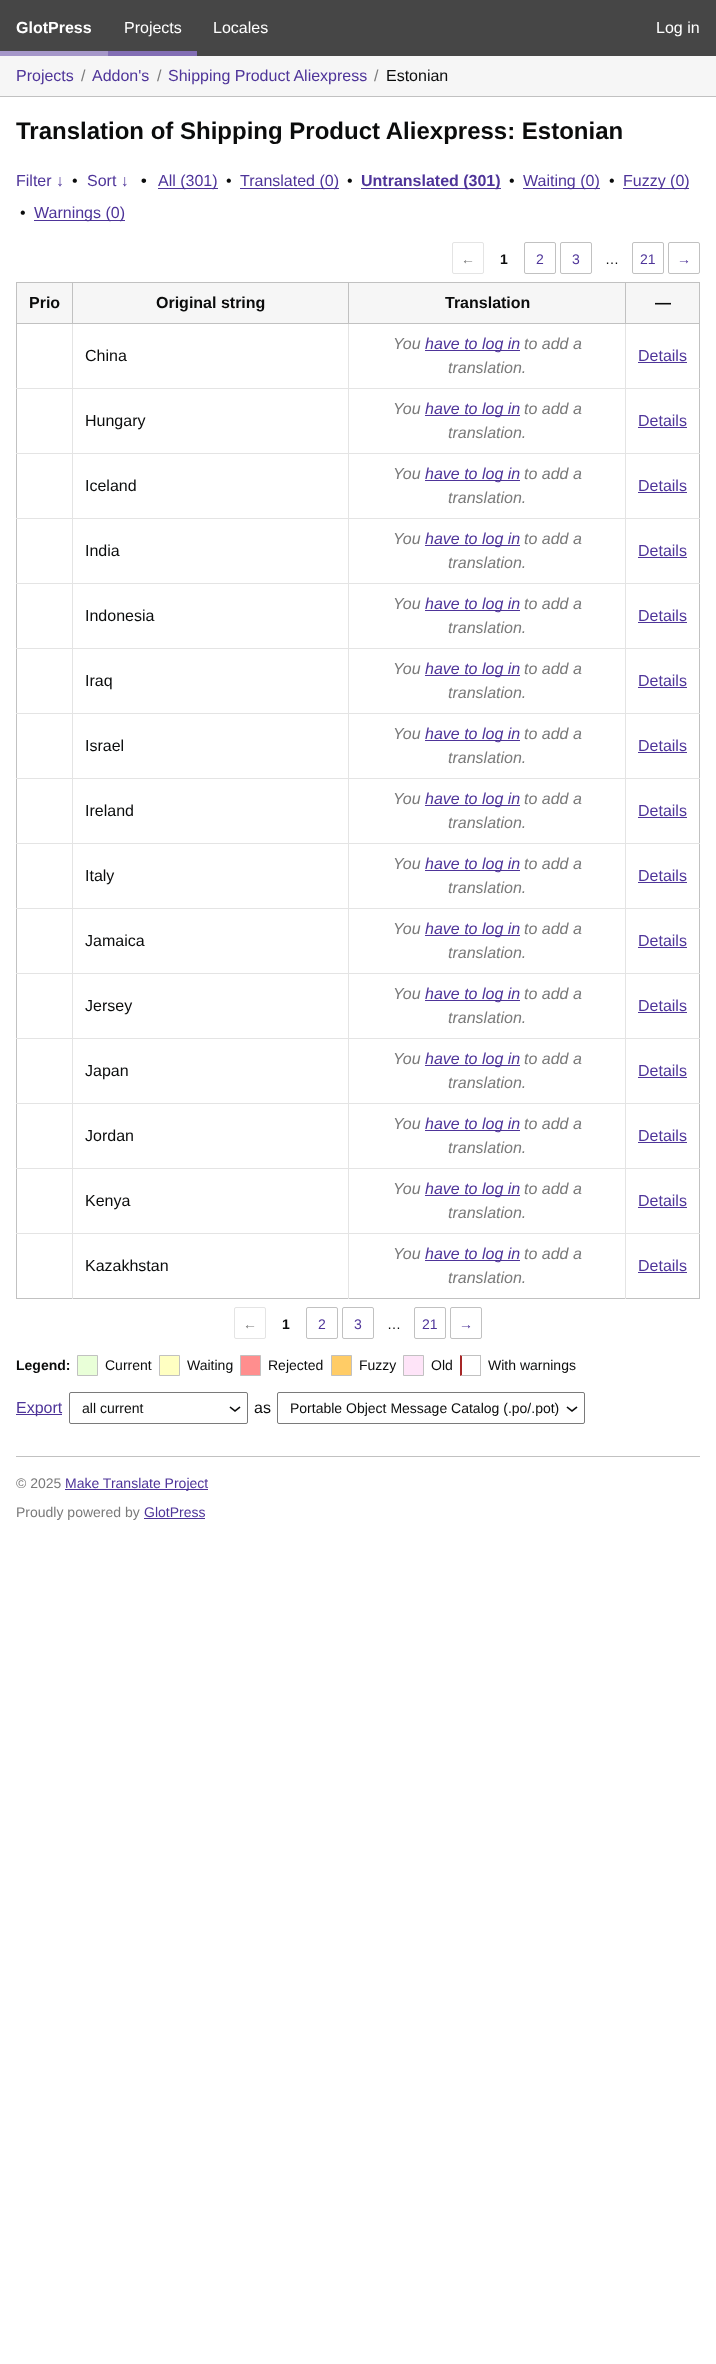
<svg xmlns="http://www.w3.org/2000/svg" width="716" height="2364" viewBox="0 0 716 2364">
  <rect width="100%" height="100%" fill="#fff"/>
  <path d="M0 0h716v56H0z" fill="#464646"/>
  <path d="M0 51h108v5H0z" fill="#a597c9"/>
  <path d="M108 51h89v5H108z" fill="#826eb4"/>
  <path d="M0 56h716v40H0z" fill="#f6f6f6"/>
  <path d="M0 96h716v1H0z" fill="#c1c1c1"/>
  <path d="M158 188h60v1H158z" fill="#4e3499"/>
  <path d="M240 188h99v1H240z" fill="#4e3499"/>
  <path d="M361 188h140v1H361z" fill="#4e3499"/>
  <path d="M523 188h77v1H523z" fill="#4e3499"/>
  <path d="M623 188h66v1H623z" fill="#4e3499"/>
  <path d="M34 220h91v1H34z" fill="#4e3499"/>
  <rect x="452.5" y="242.5" width="31" height="31" rx="1.5" fill="none" stroke="#e4e4e4"/>
  <rect x="524.5" y="242.5" width="31" height="31" rx="1.5" fill="none" stroke="#c1c1c1"/>
  <rect x="560.5" y="242.5" width="31" height="31" rx="1.5" fill="none" stroke="#c1c1c1"/>
  <rect x="632.5" y="242.5" width="31" height="31" rx="1.5" fill="none" stroke="#c1c1c1"/>
  <rect x="668.5" y="242.5" width="31" height="31" rx="1.5" fill="none" stroke="#c1c1c1"/>
  <path d="M16 282h684v1H16z" fill="#c1c1c1"/>
  <path d="M699 282h1v1017H699z" fill="#c1c1c1"/>
  <path d="M16 1298h684v1H16z" fill="#c1c1c1"/>
  <path d="M16 282h1v1017H16z" fill="#c1c1c1"/>
  <path d="M17 283h55v40H17z" fill="#f6f6f6"/>
  <path d="M625 388h75v1H625z" fill="#e4e4e4"/>
  <path d="M625 453h75v1H625z" fill="#e4e4e4"/>
  <path d="M625 518h75v1H625z" fill="#e4e4e4"/>
  <path d="M625 583h75v1H625z" fill="#e4e4e4"/>
  <path d="M625 648h75v1H625z" fill="#e4e4e4"/>
  <path d="M625 713h75v1H625z" fill="#e4e4e4"/>
  <path d="M625 778h75v1H625z" fill="#e4e4e4"/>
  <path d="M625 843h75v1H625z" fill="#e4e4e4"/>
  <path d="M625 908h75v1H625z" fill="#e4e4e4"/>
  <path d="M625 973h75v1H625z" fill="#e4e4e4"/>
  <path d="M625 1038h75v1H625z" fill="#e4e4e4"/>
  <path d="M625 1103h75v1H625z" fill="#e4e4e4"/>
  <path d="M625 1168h75v1H625z" fill="#e4e4e4"/>
  <path d="M625 1233h75v1H625z" fill="#e4e4e4"/>
  <path d="M625 1233h1v66H625z" fill="#e4e4e4"/>
  <path d="M348 1233h278v1H348z" fill="#e4e4e4"/>
  <path d="M625 1168h1v66H625z" fill="#e4e4e4"/>
  <path d="M348 1168h278v1H348z" fill="#e4e4e4"/>
  <path d="M625 1103h1v66H625z" fill="#e4e4e4"/>
  <path d="M348 1103h278v1H348z" fill="#e4e4e4"/>
  <path d="M625 1038h1v66H625z" fill="#e4e4e4"/>
  <path d="M348 1038h278v1H348z" fill="#e4e4e4"/>
  <path d="M625 973h1v66H625z" fill="#e4e4e4"/>
  <path d="M348 973h278v1H348z" fill="#e4e4e4"/>
  <path d="M625 908h1v66H625z" fill="#e4e4e4"/>
  <path d="M348 908h278v1H348z" fill="#e4e4e4"/>
  <path d="M625 843h1v66H625z" fill="#e4e4e4"/>
  <path d="M348 843h278v1H348z" fill="#e4e4e4"/>
  <path d="M625 778h1v66H625z" fill="#e4e4e4"/>
  <path d="M348 778h278v1H348z" fill="#e4e4e4"/>
  <path d="M625 713h1v66H625z" fill="#e4e4e4"/>
  <path d="M348 713h278v1H348z" fill="#e4e4e4"/>
  <path d="M625 648h1v66H625z" fill="#e4e4e4"/>
  <path d="M348 648h278v1H348z" fill="#e4e4e4"/>
  <path d="M625 583h1v66H625z" fill="#e4e4e4"/>
  <path d="M348 583h278v1H348z" fill="#e4e4e4"/>
  <path d="M625 518h1v66H625z" fill="#e4e4e4"/>
  <path d="M348 518h278v1H348z" fill="#e4e4e4"/>
  <path d="M625 453h1v66H625z" fill="#e4e4e4"/>
  <path d="M348 453h278v1H348z" fill="#e4e4e4"/>
  <path d="M625 388h1v66H625z" fill="#e4e4e4"/>
  <path d="M348 388h278v1H348z" fill="#e4e4e4"/>
  <path d="M625 323h1v66H625z" fill="#e4e4e4"/>
  <path d="M625 323h75v1H625z" fill="#c1c1c1"/>
  <path d="M625 282h1v42H625z" fill="#c1c1c1"/>
  <path d="M348 1233h1v66H348z" fill="#e4e4e4"/>
  <path d="M72 1233h277v1H72z" fill="#e4e4e4"/>
  <path d="M348 1168h1v66H348z" fill="#e4e4e4"/>
  <path d="M72 1168h277v1H72z" fill="#e4e4e4"/>
  <path d="M348 1103h1v66H348z" fill="#e4e4e4"/>
  <path d="M72 1103h277v1H72z" fill="#e4e4e4"/>
  <path d="M348 1038h1v66H348z" fill="#e4e4e4"/>
  <path d="M72 1038h277v1H72z" fill="#e4e4e4"/>
  <path d="M348 973h1v66H348z" fill="#e4e4e4"/>
  <path d="M72 973h277v1H72z" fill="#e4e4e4"/>
  <path d="M348 908h1v66H348z" fill="#e4e4e4"/>
  <path d="M72 908h277v1H72z" fill="#e4e4e4"/>
  <path d="M348 843h1v66H348z" fill="#e4e4e4"/>
  <path d="M72 843h277v1H72z" fill="#e4e4e4"/>
  <path d="M348 778h1v66H348z" fill="#e4e4e4"/>
  <path d="M72 778h277v1H72z" fill="#e4e4e4"/>
  <path d="M348 713h1v66H348z" fill="#e4e4e4"/>
  <path d="M72 713h277v1H72z" fill="#e4e4e4"/>
  <path d="M348 648h1v66H348z" fill="#e4e4e4"/>
  <path d="M72 648h277v1H72z" fill="#e4e4e4"/>
  <path d="M348 583h1v66H348z" fill="#e4e4e4"/>
  <path d="M72 583h277v1H72z" fill="#e4e4e4"/>
  <path d="M348 518h1v66H348z" fill="#e4e4e4"/>
  <path d="M72 518h277v1H72z" fill="#e4e4e4"/>
  <path d="M348 453h1v66H348z" fill="#e4e4e4"/>
  <path d="M72 453h277v1H72z" fill="#e4e4e4"/>
  <path d="M348 388h1v66H348z" fill="#e4e4e4"/>
  <path d="M72 388h277v1H72z" fill="#e4e4e4"/>
  <path d="M348 323h1v66H348z" fill="#e4e4e4"/>
  <path d="M348 323h278v1H348z" fill="#c1c1c1"/>
  <path d="M348 282h1v42H348z" fill="#c1c1c1"/>
  <path d="M72 1233h1v66H72z" fill="#e4e4e4"/>
  <path d="M16 1233h57v1H16z" fill="#e4e4e4"/>
  <path d="M72 1168h1v66H72z" fill="#e4e4e4"/>
  <path d="M16 1168h57v1H16z" fill="#e4e4e4"/>
  <path d="M72 1103h1v66H72z" fill="#e4e4e4"/>
  <path d="M16 1103h57v1H16z" fill="#e4e4e4"/>
  <path d="M72 1038h1v66H72z" fill="#e4e4e4"/>
  <path d="M16 1038h57v1H16z" fill="#e4e4e4"/>
  <path d="M72 973h1v66H72z" fill="#e4e4e4"/>
  <path d="M16 973h57v1H16z" fill="#e4e4e4"/>
  <path d="M72 908h1v66H72z" fill="#e4e4e4"/>
  <path d="M16 908h57v1H16z" fill="#e4e4e4"/>
  <path d="M72 843h1v66H72z" fill="#e4e4e4"/>
  <path d="M16 843h57v1H16z" fill="#e4e4e4"/>
  <path d="M72 778h1v66H72z" fill="#e4e4e4"/>
  <path d="M16 778h57v1H16z" fill="#e4e4e4"/>
  <path d="M72 713h1v66H72z" fill="#e4e4e4"/>
  <path d="M16 713h57v1H16z" fill="#e4e4e4"/>
  <path d="M72 648h1v66H72z" fill="#e4e4e4"/>
  <path d="M16 648h57v1H16z" fill="#e4e4e4"/>
  <path d="M72 583h1v66H72z" fill="#e4e4e4"/>
  <path d="M16 583h57v1H16z" fill="#e4e4e4"/>
  <path d="M72 518h1v66H72z" fill="#e4e4e4"/>
  <path d="M16 518h57v1H16z" fill="#e4e4e4"/>
  <path d="M72 453h1v66H72z" fill="#e4e4e4"/>
  <path d="M16 453h57v1H16z" fill="#e4e4e4"/>
  <path d="M72 388h1v66H72z" fill="#e4e4e4"/>
  <path d="M16 388h57v1H16z" fill="#e4e4e4"/>
  <path d="M72 323h1v66H72z" fill="#e4e4e4"/>
  <path d="M72 323h277v1H72z" fill="#c1c1c1"/>
  <path d="M72 282h1v42H72z" fill="#c1c1c1"/>
  <path d="M16 323h57v1H16z" fill="#c1c1c1"/>
  <path d="M73 283h275v40H73z" fill="#f6f6f6"/>
  <path d="M349 283h276v40H349z" fill="#f6f6f6"/>
  <path d="M626 283h73v40H626z" fill="#f6f6f6"/>
  <path d="M425 350h95v1H425z" fill="#4e3499"/>
  <path d="M638 362h49v1H638z" fill="#4e3499"/>
  <path d="M425 415h95v1H425z" fill="#4e3499"/>
  <path d="M638 427h49v1H638z" fill="#4e3499"/>
  <path d="M425 480h95v1H425z" fill="#4e3499"/>
  <path d="M638 492h49v1H638z" fill="#4e3499"/>
  <path d="M425 545h95v1H425z" fill="#4e3499"/>
  <path d="M638 557h49v1H638z" fill="#4e3499"/>
  <path d="M425 610h95v1H425z" fill="#4e3499"/>
  <path d="M638 622h49v1H638z" fill="#4e3499"/>
  <path d="M425 675h95v1H425z" fill="#4e3499"/>
  <path d="M638 687h49v1H638z" fill="#4e3499"/>
  <path d="M425 740h95v1H425z" fill="#4e3499"/>
  <path d="M638 752h49v1H638z" fill="#4e3499"/>
  <path d="M425 805h95v1H425z" fill="#4e3499"/>
  <path d="M638 817h49v1H638z" fill="#4e3499"/>
  <path d="M425 870h95v1H425z" fill="#4e3499"/>
  <path d="M638 882h49v1H638z" fill="#4e3499"/>
  <path d="M425 935h95v1H425z" fill="#4e3499"/>
  <path d="M638 947h49v1H638z" fill="#4e3499"/>
  <path d="M425 1000h95v1H425z" fill="#4e3499"/>
  <path d="M638 1012h49v1H638z" fill="#4e3499"/>
  <path d="M425 1065h95v1H425z" fill="#4e3499"/>
  <path d="M638 1077h49v1H638z" fill="#4e3499"/>
  <path d="M425 1130h95v1H425z" fill="#4e3499"/>
  <path d="M638 1142h49v1H638z" fill="#4e3499"/>
  <path d="M425 1195h95v1H425z" fill="#4e3499"/>
  <path d="M638 1207h49v1H638z" fill="#4e3499"/>
  <path d="M425 1260h95v1H425z" fill="#4e3499"/>
  <path d="M638 1272h49v1H638z" fill="#4e3499"/>
  <rect x="234.5" y="1307.5" width="31" height="31" rx="1.5" fill="none" stroke="#e4e4e4"/>
  <rect x="306.5" y="1307.5" width="31" height="31" rx="1.5" fill="none" stroke="#c1c1c1"/>
  <rect x="342.5" y="1307.5" width="31" height="31" rx="1.5" fill="none" stroke="#c1c1c1"/>
  <rect x="414.5" y="1307.5" width="31" height="31" rx="1.5" fill="none" stroke="#c1c1c1"/>
  <rect x="450.5" y="1307.5" width="31" height="31" rx="1.5" fill="none" stroke="#c1c1c1"/>
  <path d="M77.5 1355.5h20v20H77.5z" fill="#e9ffd8" stroke="#c1c1c1"/>
  <path d="M159.5 1355.5h20v20H159.5z" fill="#ffffc2" stroke="#c1c1c1"/>
  <path d="M240.5 1355.5h20v20H240.5z" fill="#ff8e8e" stroke="#c1c1c1"/>
  <path d="M331.5 1355.5h20v20H331.5z" fill="#fc6" stroke="#c1c1c1"/>
  <path d="M403.5 1355.5h20v20H403.5z" fill="#fee4f8" stroke="#c1c1c1"/>
  <path d="M460 1355H481L480 1356H462Z" fill="#c1c1c1"/>
  <path d="M480 1355h1v21H480z" fill="#c1c1c1"/>
  <path d="M481 1376H460L462 1375H480Z" fill="#c1c1c1"/>
  <path d="M460 1376V1355L462 1356V1375Z" fill="#a62626"/>
  <path d="M16 1414h46v1H16z" fill="#4e3499"/>
  <image x="229" y="1406" width="12" height="6" href="img/1.png"/>
  <rect x="69.5" y="1392.5" width="178" height="31" rx="1.5" fill="none" stroke="#7a7a7a"/>
  <image x="566" y="1406" width="12" height="6" href="img/1.png"/>
  <rect x="277.5" y="1392.5" width="307" height="31" rx="1.5" fill="none" stroke="#7a7a7a"/>
  <path d="M16 1456h684v1H16z" fill="#c1c1c1"/>
  <path d="M65 1489h143v1H65z" fill="#4e3499"/>
  <path d="M144 1518h61v1H144z" fill="#4e3499"/>
  <text x="16" y="33" font-family="Liberation Sans" font-size="16" font-weight="bold" fill="#fff">GlotPress</text>
  <g font-family="Liberation Sans" font-size="16" fill="#fff">
    <text x="124" y="33">Projects</text>
    <text x="213" y="33">Locales</text>
    <text x="656" y="33">Log in</text>
  </g>
  <text x="16" y="81" font-family="Liberation Sans" font-size="16" fill="#4e3499">Projects</text>
  <text x="81" y="81" font-family="Liberation Sans" font-size="16" fill="#7a7a7a">/</text>
  <text x="92" y="81" font-family="Liberation Sans" font-size="16" fill="#4e3499">Addon's</text>
  <text x="157" y="81" font-family="Liberation Sans" font-size="16" fill="#7a7a7a">/</text>
  <text x="168" y="81" font-family="Liberation Sans" font-size="16" fill="#4e3499">Shipping Product Aliexpress</text>
  <text x="374" y="81" font-family="Liberation Sans" font-size="16" fill="#7a7a7a">/</text>
  <text x="386" y="81" font-family="Liberation Sans" font-size="16" fill="#0b0c0c">Estonian</text>
  <text x="16" y="139" font-family="Liberation Sans" font-size="24" font-weight="bold" fill="#0b0c0c">Translation of Shipping Product Aliexpress: Estonian</text>
  <text x="16" y="186" font-family="Liberation Sans" font-size="16" fill="#4e3499">Filter ↓</text>
  <text x="72" y="186" font-family="Liberation Sans" font-size="16" fill="#0b0c0c">•</text>
  <text x="87" y="186" font-family="Liberation Sans" font-size="16" fill="#4e3499">Sort ↓</text>
  <text x="141" y="186" font-family="Liberation Sans" font-size="16" font-weight="bold" fill="#0b0c0c">•</text>
  <text x="158" y="186" font-family="Liberation Sans" font-size="16" fill="#4e3499">All (301)</text>
  <text x="226" y="186" font-family="Liberation Sans" font-size="16" fill="#0b0c0c">•</text>
  <text x="240" y="186" font-family="Liberation Sans" font-size="16" fill="#4e3499">Translated (0)</text>
  <text x="347" y="186" font-family="Liberation Sans" font-size="16" fill="#0b0c0c">•</text>
  <text x="361" y="186" font-family="Liberation Sans" font-size="16" font-weight="bold" fill="#4e3499">Untranslated (301)</text>
  <text x="509" y="186" font-family="Liberation Sans" font-size="16" fill="#0b0c0c">•</text>
  <text x="523" y="186" font-family="Liberation Sans" font-size="16" fill="#4e3499">Waiting (0)</text>
  <text x="609" y="186" font-family="Liberation Sans" font-size="16" fill="#0b0c0c">•</text>
  <text x="623" y="186" font-family="Liberation Sans" font-size="16" fill="#4e3499">Fuzzy (0)</text>
  <text x="20" y="218" font-family="Liberation Sans" font-size="16" fill="#0b0c0c">•</text>
  <text x="34" y="218" font-family="Liberation Sans" font-size="16" fill="#4e3499">Warnings (0)</text>
  <text x="461" y="264" font-family="Liberation Sans" font-size="14" fill="#7a7a7a">←</text>
  <text x="500" y="264" font-family="Liberation Sans" font-size="14" font-weight="bold" fill="#0b0c0c">1</text>
  <g font-family="Liberation Sans" font-size="14" fill="#4e3499">
    <text x="536" y="264">2</text>
    <text x="572" y="264">3</text>
  </g>
  <text x="605" y="264" font-family="Liberation Sans" font-size="14" fill="#0b0c0c">…</text>
  <g font-family="Liberation Sans" font-size="14" fill="#4e3499">
    <text x="640" y="264">21</text>
    <text x="677" y="264">→</text>
  </g>
  <g font-family="Liberation Sans" font-size="16" font-weight="bold" fill="#0b0c0c">
    <text x="29" y="308">Prio</text>
    <text x="156" y="308">Original string</text>
    <text x="445" y="308">Translation</text>
    <text x="655" y="308">—</text>
  </g>
  <text x="85" y="361" font-family="Liberation Sans" font-size="16" fill="#0b0c0c">China</text>
  <text x="393" y="349" font-family="Liberation Sans" font-size="16" font-style="italic" fill="#7a7a7a">You</text>
  <text x="425" y="349" font-family="Liberation Sans" font-size="16" font-style="italic" fill="#4e3499">have to log in</text>
  <g font-family="Liberation Sans" font-size="16" font-style="italic" fill="#7a7a7a">
    <text x="524" y="349">to add a</text>
    <text x="448" y="373">translation.</text>
  </g>
  <text x="638" y="361" font-family="Liberation Sans" font-size="16" fill="#4e3499">Details</text>
  <text x="85" y="426" font-family="Liberation Sans" font-size="16" fill="#0b0c0c">Hungary</text>
  <text x="393" y="414" font-family="Liberation Sans" font-size="16" font-style="italic" fill="#7a7a7a">You</text>
  <text x="425" y="414" font-family="Liberation Sans" font-size="16" font-style="italic" fill="#4e3499">have to log in</text>
  <g font-family="Liberation Sans" font-size="16" font-style="italic" fill="#7a7a7a">
    <text x="524" y="414">to add a</text>
    <text x="448" y="438">translation.</text>
  </g>
  <text x="638" y="426" font-family="Liberation Sans" font-size="16" fill="#4e3499">Details</text>
  <text x="85" y="491" font-family="Liberation Sans" font-size="16" fill="#0b0c0c">Iceland</text>
  <text x="393" y="479" font-family="Liberation Sans" font-size="16" font-style="italic" fill="#7a7a7a">You</text>
  <text x="425" y="479" font-family="Liberation Sans" font-size="16" font-style="italic" fill="#4e3499">have to log in</text>
  <g font-family="Liberation Sans" font-size="16" font-style="italic" fill="#7a7a7a">
    <text x="524" y="479">to add a</text>
    <text x="448" y="503">translation.</text>
  </g>
  <text x="638" y="491" font-family="Liberation Sans" font-size="16" fill="#4e3499">Details</text>
  <text x="85" y="556" font-family="Liberation Sans" font-size="16" fill="#0b0c0c">India</text>
  <text x="393" y="544" font-family="Liberation Sans" font-size="16" font-style="italic" fill="#7a7a7a">You</text>
  <text x="425" y="544" font-family="Liberation Sans" font-size="16" font-style="italic" fill="#4e3499">have to log in</text>
  <g font-family="Liberation Sans" font-size="16" font-style="italic" fill="#7a7a7a">
    <text x="524" y="544">to add a</text>
    <text x="448" y="568">translation.</text>
  </g>
  <text x="638" y="556" font-family="Liberation Sans" font-size="16" fill="#4e3499">Details</text>
  <text x="85" y="621" font-family="Liberation Sans" font-size="16" fill="#0b0c0c">Indonesia</text>
  <text x="393" y="609" font-family="Liberation Sans" font-size="16" font-style="italic" fill="#7a7a7a">You</text>
  <text x="425" y="609" font-family="Liberation Sans" font-size="16" font-style="italic" fill="#4e3499">have to log in</text>
  <g font-family="Liberation Sans" font-size="16" font-style="italic" fill="#7a7a7a">
    <text x="524" y="609">to add a</text>
    <text x="448" y="633">translation.</text>
  </g>
  <text x="638" y="621" font-family="Liberation Sans" font-size="16" fill="#4e3499">Details</text>
  <text x="85" y="686" font-family="Liberation Sans" font-size="16" fill="#0b0c0c">Iraq</text>
  <text x="393" y="674" font-family="Liberation Sans" font-size="16" font-style="italic" fill="#7a7a7a">You</text>
  <text x="425" y="674" font-family="Liberation Sans" font-size="16" font-style="italic" fill="#4e3499">have to log in</text>
  <g font-family="Liberation Sans" font-size="16" font-style="italic" fill="#7a7a7a">
    <text x="524" y="674">to add a</text>
    <text x="448" y="698">translation.</text>
  </g>
  <text x="638" y="686" font-family="Liberation Sans" font-size="16" fill="#4e3499">Details</text>
  <text x="85" y="751" font-family="Liberation Sans" font-size="16" fill="#0b0c0c">Israel</text>
  <text x="393" y="739" font-family="Liberation Sans" font-size="16" font-style="italic" fill="#7a7a7a">You</text>
  <text x="425" y="739" font-family="Liberation Sans" font-size="16" font-style="italic" fill="#4e3499">have to log in</text>
  <g font-family="Liberation Sans" font-size="16" font-style="italic" fill="#7a7a7a">
    <text x="524" y="739">to add a</text>
    <text x="448" y="763">translation.</text>
  </g>
  <text x="638" y="751" font-family="Liberation Sans" font-size="16" fill="#4e3499">Details</text>
  <text x="85" y="816" font-family="Liberation Sans" font-size="16" fill="#0b0c0c">Ireland</text>
  <text x="393" y="804" font-family="Liberation Sans" font-size="16" font-style="italic" fill="#7a7a7a">You</text>
  <text x="425" y="804" font-family="Liberation Sans" font-size="16" font-style="italic" fill="#4e3499">have to log in</text>
  <g font-family="Liberation Sans" font-size="16" font-style="italic" fill="#7a7a7a">
    <text x="524" y="804">to add a</text>
    <text x="448" y="828">translation.</text>
  </g>
  <text x="638" y="816" font-family="Liberation Sans" font-size="16" fill="#4e3499">Details</text>
  <text x="85" y="881" font-family="Liberation Sans" font-size="16" fill="#0b0c0c">Italy</text>
  <text x="393" y="869" font-family="Liberation Sans" font-size="16" font-style="italic" fill="#7a7a7a">You</text>
  <text x="425" y="869" font-family="Liberation Sans" font-size="16" font-style="italic" fill="#4e3499">have to log in</text>
  <g font-family="Liberation Sans" font-size="16" font-style="italic" fill="#7a7a7a">
    <text x="524" y="869">to add a</text>
    <text x="448" y="893">translation.</text>
  </g>
  <text x="638" y="881" font-family="Liberation Sans" font-size="16" fill="#4e3499">Details</text>
  <text x="85" y="946" font-family="Liberation Sans" font-size="16" fill="#0b0c0c">Jamaica</text>
  <text x="393" y="934" font-family="Liberation Sans" font-size="16" font-style="italic" fill="#7a7a7a">You</text>
  <text x="425" y="934" font-family="Liberation Sans" font-size="16" font-style="italic" fill="#4e3499">have to log in</text>
  <g font-family="Liberation Sans" font-size="16" font-style="italic" fill="#7a7a7a">
    <text x="524" y="934">to add a</text>
    <text x="448" y="958">translation.</text>
  </g>
  <text x="638" y="946" font-family="Liberation Sans" font-size="16" fill="#4e3499">Details</text>
  <text x="85" y="1011" font-family="Liberation Sans" font-size="16" fill="#0b0c0c">Jersey</text>
  <text x="393" y="999" font-family="Liberation Sans" font-size="16" font-style="italic" fill="#7a7a7a">You</text>
  <text x="425" y="999" font-family="Liberation Sans" font-size="16" font-style="italic" fill="#4e3499">have to log in</text>
  <g font-family="Liberation Sans" font-size="16" font-style="italic" fill="#7a7a7a">
    <text x="524" y="999">to add a</text>
    <text x="448" y="1023">translation.</text>
  </g>
  <text x="638" y="1011" font-family="Liberation Sans" font-size="16" fill="#4e3499">Details</text>
  <text x="85" y="1076" font-family="Liberation Sans" font-size="16" fill="#0b0c0c">Japan</text>
  <text x="393" y="1064" font-family="Liberation Sans" font-size="16" font-style="italic" fill="#7a7a7a">You</text>
  <text x="425" y="1064" font-family="Liberation Sans" font-size="16" font-style="italic" fill="#4e3499">have to log in</text>
  <g font-family="Liberation Sans" font-size="16" font-style="italic" fill="#7a7a7a">
    <text x="524" y="1064">to add a</text>
    <text x="448" y="1088">translation.</text>
  </g>
  <text x="638" y="1076" font-family="Liberation Sans" font-size="16" fill="#4e3499">Details</text>
  <text x="85" y="1141" font-family="Liberation Sans" font-size="16" fill="#0b0c0c">Jordan</text>
  <text x="393" y="1129" font-family="Liberation Sans" font-size="16" font-style="italic" fill="#7a7a7a">You</text>
  <text x="425" y="1129" font-family="Liberation Sans" font-size="16" font-style="italic" fill="#4e3499">have to log in</text>
  <g font-family="Liberation Sans" font-size="16" font-style="italic" fill="#7a7a7a">
    <text x="524" y="1129">to add a</text>
    <text x="448" y="1153">translation.</text>
  </g>
  <text x="638" y="1141" font-family="Liberation Sans" font-size="16" fill="#4e3499">Details</text>
  <text x="85" y="1206" font-family="Liberation Sans" font-size="16" fill="#0b0c0c">Kenya</text>
  <text x="393" y="1194" font-family="Liberation Sans" font-size="16" font-style="italic" fill="#7a7a7a">You</text>
  <text x="425" y="1194" font-family="Liberation Sans" font-size="16" font-style="italic" fill="#4e3499">have to log in</text>
  <g font-family="Liberation Sans" font-size="16" font-style="italic" fill="#7a7a7a">
    <text x="524" y="1194">to add a</text>
    <text x="448" y="1218">translation.</text>
  </g>
  <text x="638" y="1206" font-family="Liberation Sans" font-size="16" fill="#4e3499">Details</text>
  <text x="85" y="1271" font-family="Liberation Sans" font-size="16" fill="#0b0c0c">Kazakhstan</text>
  <text x="393" y="1259" font-family="Liberation Sans" font-size="16" font-style="italic" fill="#7a7a7a">You</text>
  <text x="425" y="1259" font-family="Liberation Sans" font-size="16" font-style="italic" fill="#4e3499">have to log in</text>
  <g font-family="Liberation Sans" font-size="16" font-style="italic" fill="#7a7a7a">
    <text x="524" y="1259">to add a</text>
    <text x="448" y="1283">translation.</text>
  </g>
  <text x="638" y="1271" font-family="Liberation Sans" font-size="16" fill="#4e3499">Details</text>
  <text x="243" y="1329" font-family="Liberation Sans" font-size="14" fill="#7a7a7a">←</text>
  <text x="282" y="1329" font-family="Liberation Sans" font-size="14" font-weight="bold" fill="#0b0c0c">1</text>
  <g font-family="Liberation Sans" font-size="14" fill="#4e3499">
    <text x="318" y="1329">2</text>
    <text x="354" y="1329">3</text>
  </g>
  <text x="387" y="1329" font-family="Liberation Sans" font-size="14" fill="#0b0c0c">…</text>
  <g font-family="Liberation Sans" font-size="14" fill="#4e3499">
    <text x="422" y="1329">21</text>
    <text x="459" y="1329">→</text>
  </g>
  <text x="16" y="1370" font-family="Liberation Sans" font-size="14" font-weight="bold" fill="#0b0c0c">Legend:</text>
  <g font-family="Liberation Sans" font-size="14" fill="#0b0c0c">
    <text x="105" y="1370">Current</text>
    <text x="187" y="1370">Waiting</text>
    <text x="268" y="1370">Rejected</text>
    <text x="359" y="1370">Fuzzy</text>
    <text x="431" y="1370">Old</text>
    <text x="488" y="1370">With warnings</text>
  </g>
  <text x="16" y="1413" font-family="Liberation Sans" font-size="16" fill="#4e3499">Export</text>
  <text x="82" y="1413" font-family="Liberation Sans" font-size="14" fill="#0b0c0c">all current</text>
  <text x="254" y="1413" font-family="Liberation Sans" font-size="16" fill="#0b0c0c">as</text>
  <text x="290" y="1413" font-family="Liberation Sans" font-size="14" fill="#0b0c0c">Portable Object Message Catalog (.po/.pot)</text>
  <text x="16" y="1488" font-family="Liberation Sans" font-size="14" fill="#7a7a7a">© 2025</text>
  <text x="65" y="1488" font-family="Liberation Sans" font-size="14" fill="#4e3499">Make Translate Project</text>
  <text x="16" y="1517" font-family="Liberation Sans" font-size="14" fill="#7a7a7a">Proudly powered by</text>
  <text x="144" y="1517" font-family="Liberation Sans" font-size="14" fill="#4e3499">GlotPress</text>
</svg>
